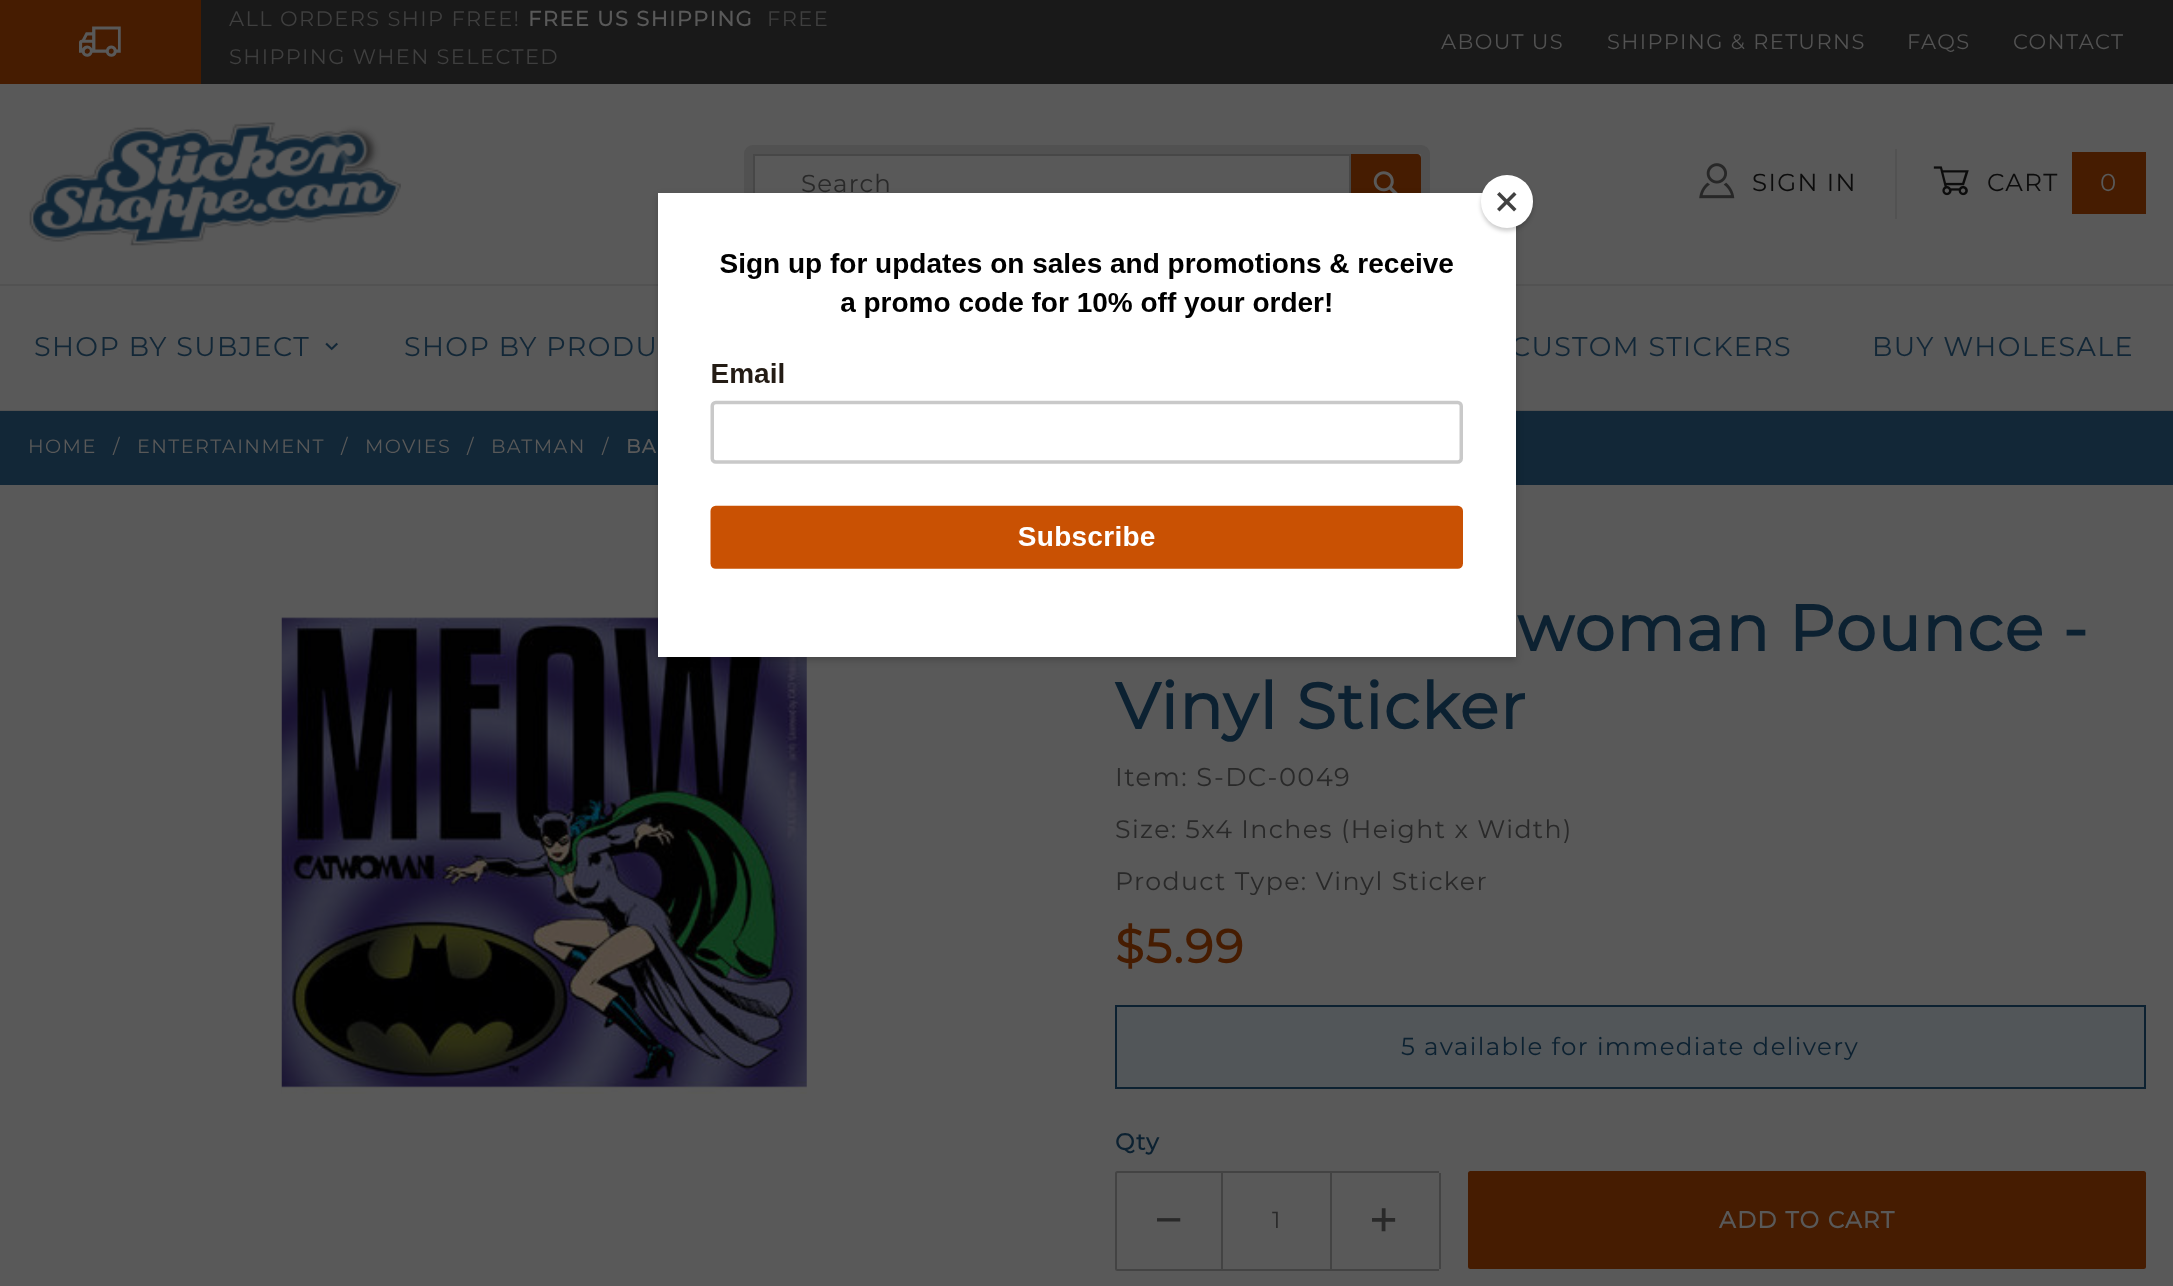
<svg xmlns="http://www.w3.org/2000/svg" width="2173" height="1286" viewBox="0 0 2173 1286">
  <rect width="100%" height="100%" fill="#595959"/>
  <path d="M0 284h2173v2H0z" fill="#525252"/>
  <path d="M201 0h1972v84H201z" fill="#191919"/>
  <path d="M0 0h201v84H0z" fill="#461c01"/>
  <image x="29" y="122" width="372" height="124" href="img/1.png"/>
  <rect x="748.5" y="149.5" width="677" height="70" rx="4.5" fill="none" stroke="#515151" stroke-width="9"/>
  <path d="M754 155h596v59H754z" fill="none" stroke="#474747" stroke-width="2"/>
  <path d="M1351 154H1417C1419 154 1421 156 1421 158V211C1421 213 1419 215 1417 215H1351Z" fill="#461c01"/>
  <image x="1373" y="171" width="25" height="22" href="img/2.png"/>
  <path d="M1895 149h2v70H1895z" fill="#525252"/>
  <image x="1699" y="163" width="36" height="36" href="img/3.png"/>
  <image x="1933" y="166" width="36" height="30" href="img/4.png"/>
  <path d="M2072 152h74v62H2072z" fill="#461c01"/>
  <path d="M0 410h2173v1H0z" fill="#525252"/>
  <path d="M0 411h2173v74H0z" fill="#122737"/>
  <image x="281" y="617" width="526" height="477" href="img/6.png"/>
  <path d="M658 196h858v464H658z" fill="#00000033" filter="blur(3.5px)"/>
  <path d="M1116 1006h1029v82H1116z" fill="#525659" stroke="#0c2131" stroke-width="2"/>
  <path d="M1117.5 1172H1222V1270H1117.5C1116.5 1270 1116 1269.5 1116 1268.5V1173.5C1116 1172.5 1116.5 1172 1117.5 1172Z" fill="none" stroke="#434343" stroke-width="2"/>
  <path d="M1223 1171h216v2H1223z" fill="#434343"/>
  <path d="M1330 1171h2v100H1330z" fill="#434343"/>
  <path d="M1223 1269h216v2H1223z" fill="#434343"/>
  <path d="M1439 1173h2v96H1439z" fill="#434343"/>
  <rect x="1468" y="1171" width="678" height="98" rx="2.5" fill="#461c01"/>
  <text x="79" y="60" font-family="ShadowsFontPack" font-size="42" letter-spacing="1.4" fill="#595959">*</text>
  <text x="229" y="26" font-family="Montserrat" font-size="21" font-weight="100" letter-spacing="1.4" fill="#3f3f3f">ALL ORDERS SHIP FREE!</text>
  <text x="528" y="26" font-family="Montserrat" font-size="21" font-weight="bold" letter-spacing="1.4" fill="#595959">FREE US SHIPPING</text>
  <g font-family="Montserrat" font-size="21" font-weight="100" letter-spacing="1.4" fill="#3f3f3f">
    <text x="767" y="26">FREE</text>
    <text x="229" y="64">SHIPPING WHEN SELECTED</text>
  </g>
  <g font-family="Montserrat" font-size="21" font-weight="100" letter-spacing="1.4" fill="#525252">
    <text x="1441" y="49">ABOUT US</text>
    <text x="1607" y="49">SHIPPING &amp; RETURNS</text>
    <text x="1907" y="49">FAQS</text>
    <text x="2013" y="49">CONTACT</text>
  </g>
  <text x="801" y="192" font-family="Montserrat" font-size="24.5" font-weight="100" letter-spacing="1.25" fill="#292929">Search</text>
  <g font-family="Montserrat" font-size="24.5" font-weight="100" letter-spacing="1.4" fill="#0c0c0c">
    <text x="1752" y="191">SIGN IN</text>
    <text x="1987" y="191">CART</text>
  </g>
  <text x="2100" y="191" font-family="Montserrat" font-size="24.5" font-weight="100" letter-spacing="1.4" fill="#595959">0</text>
  <text x="34" y="356" font-family="Montserrat" font-size="27" font-weight="100" letter-spacing="1.4" fill="#122737">SHOP BY SUBJECT</text>
  <text x="326" y="340" transform="rotate(90 326 340)" font-family="ShadowsFontPack" font-size="13" letter-spacing="1.4" fill="#122737">3</text>
  <g font-family="Montserrat" font-size="27" font-weight="100" letter-spacing="1.4" fill="#122737">
    <text x="404" y="356">SHOP BY PRODU</text>
    <text x="1511" y="356">CUSTOM STICKERS</text>
  </g>
  <image x="658" y="193" width="858" height="464" href="img/5.png"/>
  <rect x="1481" y="179" width="52" height="52" rx="26" fill="#00000033" filter="blur(2px)"/>
  <rect x="1481" y="175" width="52" height="53" rx="26" fill="#fff"/>
  <path d="M1514 192L1516.5 194.5L1499.5 211.5L1497 209Z" fill="#414141"/>
  <path d="M1497 194.5L1499.5 192L1516.5 209L1514 211.5Z" fill="#414141"/>
  <text x="1872" y="356" font-family="Montserrat" font-size="27" font-weight="100" letter-spacing="1.4" fill="#122737">BUY WHOLESALE</text>
  <g font-family="Montserrat" font-size="19.25" font-weight="100" letter-spacing="1.4" fill="#595959">
    <text x="28" y="453">HOME</text>
    <text x="113" y="453">/</text>
    <text x="137" y="453">ENTERTAINMENT</text>
    <text x="341" y="453">/</text>
    <text x="365" y="453">MOVIES</text>
    <text x="467" y="453">/</text>
    <text x="491" y="453">BATMAN</text>
    <text x="602" y="453">/</text>
  </g>
  <text x="626" y="453" font-family="Montserrat" font-size="19.25" font-weight="bold" letter-spacing="1.4" fill="#595959">BA</text>
  <g font-family="Montserrat" font-size="64.5" font-weight="bold" letter-spacing="1.4" fill="#0c2131">
    <text x="1517" y="651">woman Pounce -</text>
    <text x="1115" y="729">Vinyl Sticker</text>
  </g>
  <text x="1115" y="786" font-family="Montserrat" font-size="25.75" font-weight="100" letter-spacing="1.4" fill="#292929">Item: S-DC-0049</text>
  <g font-family="Montserrat" font-size="25.25" font-weight="100" letter-spacing="1.4" fill="#292929">
    <text x="1115" y="838">Size: 5x4 Inches (Height x Width)</text>
    <text x="1115" y="890">Product Type: Vinyl Sticker</text>
  </g>
  <text x="1115" y="963" font-family="Montserrat" font-size="47" font-weight="bold" letter-spacing="1.4" fill="#461c01">$5.99</text>
  <text x="1401" y="1055" font-family="Montserrat" font-size="24.5" font-weight="100" letter-spacing="1.4" fill="#0c2131">5 available for immediate delivery</text>
  <text x="1115" y="1150" font-family="Montserrat" font-size="23.25" font-weight="bold" letter-spacing="1.4" fill="#0c2131">Qty</text>
  <text x="1157" y="1230" font-family="ShadowsFontPack" font-size="23.25" letter-spacing="1.25" fill="#292929">&lt;</text>
  <text x="1272" y="1228" font-family="Montserrat" font-size="23.25" font-weight="100" letter-spacing="1.25" fill="#292929">1</text>
  <text x="1372" y="1230" font-family="ShadowsFontPack" font-size="23.25" letter-spacing="1.25" fill="#292929">=</text>
  <text x="1719" y="1228" font-family="Montserrat" font-size="23.25" font-weight="bold" letter-spacing="1.25" fill="#595959">ADD TO CART</text>
</svg>
